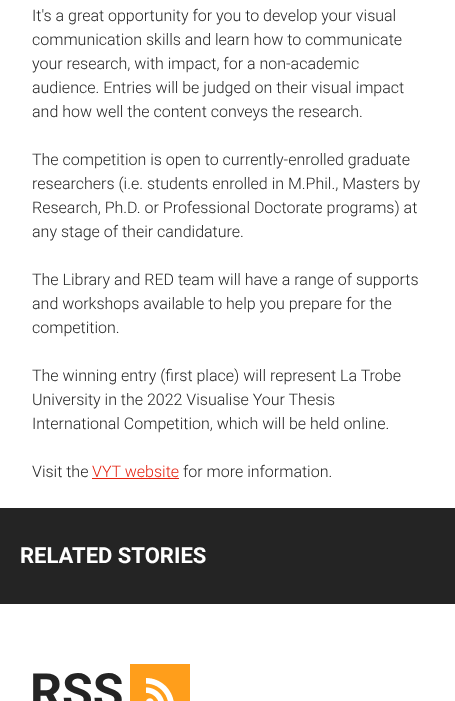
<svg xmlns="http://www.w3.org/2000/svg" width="455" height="701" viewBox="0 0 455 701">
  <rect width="100%" height="100%" fill="#fff"/>
  <path d="M92 478h87v1H92z" fill="#e42312"/>
  <path d="M0 508h455v96H0z" fill="#242424"/>
  <image x="130" y="664" width="60" height="37" href="img/1.png"/>
  <g font-family="Roboto" font-size="16" font-weight="300" fill="#242424">
    <text x="32" y="21">It's a great opportunity for you to develop your visual</text>
    <text x="32" y="45">communication skills and learn how to communicate</text>
    <text x="32" y="69">your research, with impact, for a non-academic</text>
    <text x="32" y="93">audience. Entries will be judged on their visual impact</text>
    <text x="32" y="117">and how well the content conveys the research.</text>
    <text x="32" y="165">The competition is open to currently-enrolled graduate</text>
    <text x="32" y="189">researchers (i.e. students enrolled in M.Phil., Masters by</text>
    <text x="32" y="213">Research, Ph.D. or Professional Doctorate programs) at</text>
    <text x="32" y="237">any stage of their candidature.</text>
    <text x="32" y="285">The Library and RED team will have a range of supports</text>
    <text x="32" y="309">and workshops available to help you prepare for the</text>
    <text x="32" y="333">competition.</text>
    <text x="32" y="381">The winning entry (first place) will represent La Trobe</text>
    <text x="32" y="405">University in the 2022 Visualise Your Thesis</text>
    <text x="32" y="429">International Competition, which will be held online.</text>
    <text x="32" y="477">Visit the</text>
  </g>
  <text x="92" y="477" font-family="Roboto" font-size="16" font-weight="300" fill="#e42312">VYT website</text>
  <text x="183" y="477" font-family="Roboto" font-size="16" font-weight="300" fill="#242424">for more information.</text>
  <text x="20" y="563" font-family="Roboto" font-size="22" font-weight="bold" fill="#fff">RELATED STORIES</text>
  <text x="30" y="709" font-family="Roboto" font-size="50" font-weight="bold" fill="#242424">RSS</text>
</svg>
